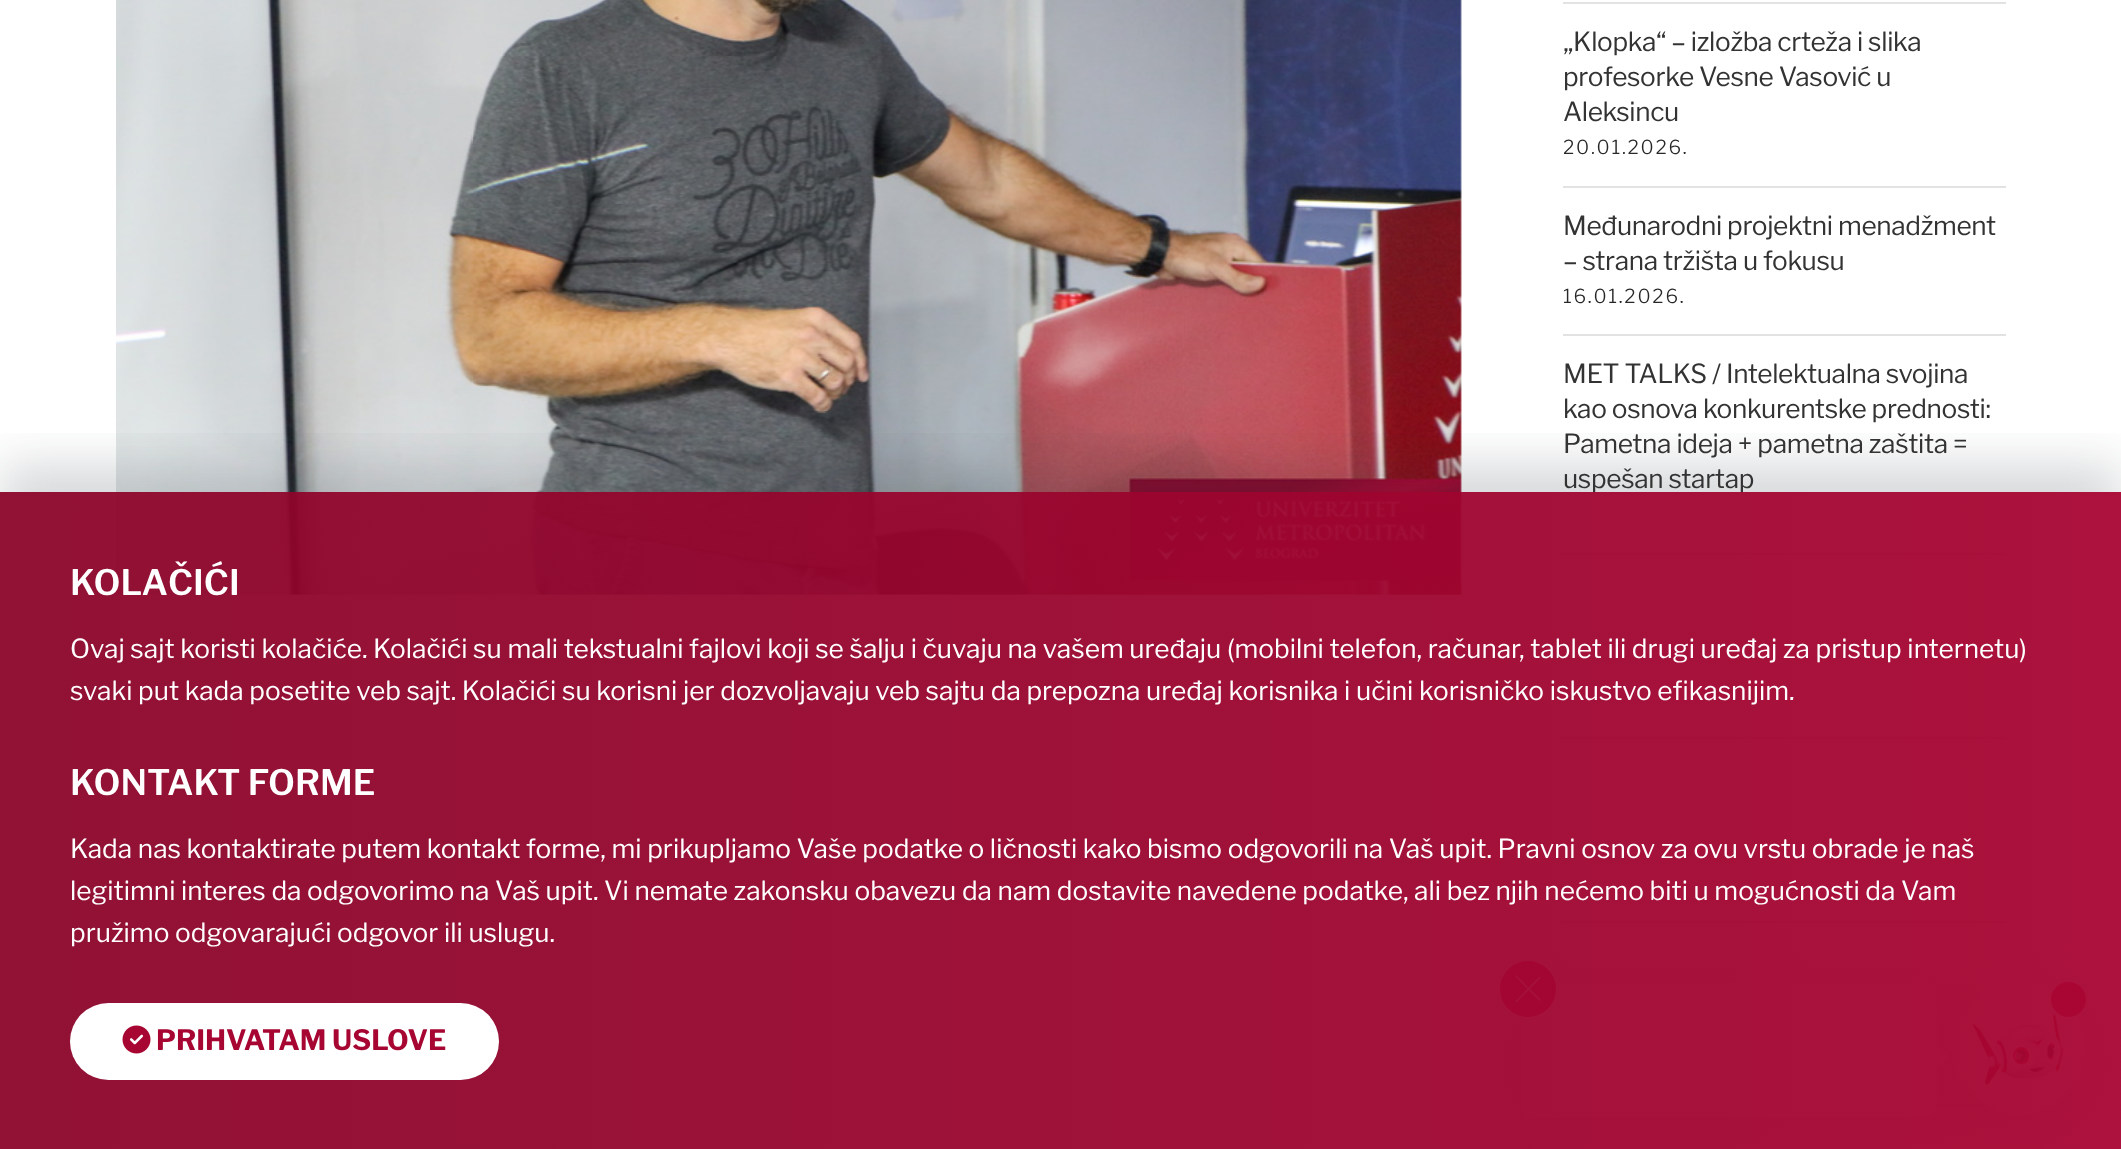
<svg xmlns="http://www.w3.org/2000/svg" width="2121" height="1149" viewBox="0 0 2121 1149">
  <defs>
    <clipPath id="clip1"><path d="M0 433h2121v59H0z"/></clipPath>
    <linearGradient id="g1" gradientUnits="userSpaceOnUse" x1="0" y1="821" x2="2121" y2="821"><stop offset="0" stop-color="#8b052a" stop-opacity="0.95"/><stop offset="1" stop-color="#a70532" stop-opacity="0.95"/></linearGradient>
  </defs>
  <rect width="100%" height="100%" fill="#fff"/>
  <image x="116" y="0" width="1346" height="595" href="img/1.png"/>
  <path d="M1563 2h443v2H1563z" fill="#e2e2e2"/>
  <path d="M1563 186h443v2H1563z" fill="#e2e2e2"/>
  <path d="M1563 334h443v2H1563z" fill="#e2e2e2"/>
  <path d="M1563 553h443v2H1563z" fill="#e2e2e2"/>
  <path d="M1563 737h443v2H1563z" fill="#e2e2e2"/>
  <path d="M1563 921h443v2H1563z" fill="#e2e2e2"/>
  <path d="M1936 1104h50v2H1936z" fill="#e2e2e2"/>
  <rect x="1953" y="994" width="133" height="133" rx="66.5" fill="#64646f33" filter="blur(25.5px)"/>
  <circle cx="2019.5" cy="1048.5" r="66.5" fill="#fff"/>
  <image x="1972" y="1013" width="93" height="72" href="img/3.png"/>
  <rect x="1521" y="994" width="416" height="137" rx="14" fill="#64646f33" filter="blur(25.5px)"/>
  <rect x="1521" y="982" width="416" height="136" rx="14" fill="#fff"/>
  <circle cx="1528" cy="989" r="28" fill="#e7134e"/>
  <path d="M1516 975L1540.5 999.5L1539.5 1001L1515 976Z" fill="#fff"/>
  <path d="M1515 1001.5L1539.5 976.5L1540.5 978L1516 1002.5Z" fill="#fff"/>
  <path d="M1928 1035L1949 1056L1928 1077L1907 1056Z" fill="#fff"/>
  <circle cx="2068.5" cy="999.5" r="17.5" fill="#e7134e"/>
  <g clip-path="url(#clip1)">
    <path d="M0 464h2121v658H0z" fill="#393f4833" filter="blur(24.5px)"/>
  </g>
  <g font-family="Libre Franklin" font-size="26.25" letter-spacing="-0.35" fill="#333">
    <text x="1563" y="51">„Klopka“ – izložba crteža i slika</text>
    <text x="1563" y="86">profesorke Vesne Vasović u</text>
    <text x="1563" y="121">Aleksincu</text>
  </g>
  <text x="1563" y="154" font-family="Libre Franklin" font-size="19.25" font-weight="300" letter-spacing="1.75" fill="#272727">20.01.2026.</text>
  <g font-family="Libre Franklin" font-size="26.25" letter-spacing="-0.35" fill="#333">
    <text x="1563" y="235">Međunarodni projektni menadžment</text>
    <text x="1563" y="270">– strana tržišta u fokusu</text>
  </g>
  <text x="1563" y="303" font-family="Libre Franklin" font-size="19.25" font-weight="300" letter-spacing="1.75" fill="#272727">16.01.2026.</text>
  <g font-family="Libre Franklin" font-size="26.25" letter-spacing="-0.35" fill="#333">
    <text x="1563" y="383">MET TALKS / Intelektualna svojina</text>
    <text x="1563" y="418">kao osnova konkurentske prednosti:</text>
    <text x="1563" y="453">Pametna ideja + pametna zaštita =</text>
    <text x="1563" y="488">uspešan startap</text>
  </g>
  <path d="M0 492h2121v657H0z" fill="url(#g1)"/>
  <text x="70" y="595" font-family="Libre Franklin" font-size="35" font-weight="600" fill="#fff">KOLAČIĆI</text>
  <g font-family="Libre Franklin" font-size="26.25" fill="#fff">
    <text x="70" y="658">Ovaj sajt koristi kolačiće. Kolačići su mali tekstualni fajlovi koji se šalju i čuvaju na vašem uređaju (mobilni telefon, računar, tablet ili drugi uređaj za pristup internetu)</text>
    <text x="70" y="700">svaki put kada posetite veb sajt. Kolačići su korisni jer dozvoljavaju veb sajtu da prepozna uređaj korisnika i učini korisničko iskustvo efikasnijim.</text>
  </g>
  <text x="70" y="795" font-family="Libre Franklin" font-size="35" font-weight="600" fill="#fff">KONTAKT FORME</text>
  <g font-family="Libre Franklin" font-size="26.25" fill="#fff">
    <text x="70" y="858">Kada nas kontaktirate putem kontakt forme, mi prikupljamo Vaše podatke o ličnosti kako bismo odgovorili na Vaš upit. Pravni osnov za ovu vrstu obrade je naš</text>
    <text x="70" y="900">legitimni interes da odgovorimo na Vaš upit. Vi nemate zakonsku obavezu da nam dostavite navedene podatke, ali bez njih nećemo biti u mogućnosti da Vam</text>
    <text x="70" y="942">pružimo odgovarajući odgovor ili uslugu.</text>
  </g>
  <rect x="70" y="1003" width="429" height="77" rx="38.5" fill="#fff"/>
  <image x="122" y="1025" width="29" height="29" href="img/2.png"/>
  <text x="156" y="1050" font-family="Libre Franklin" font-size="28" font-weight="bold" fill="#a70532">PRIHVATAM USLOVE</text>
</svg>
